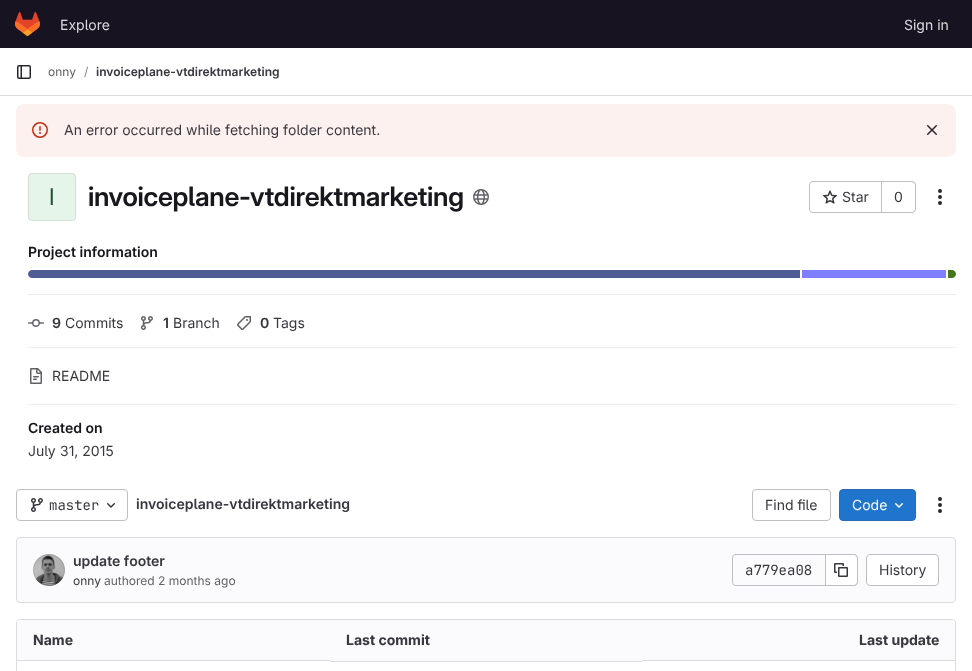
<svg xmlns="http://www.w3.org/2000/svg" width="972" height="671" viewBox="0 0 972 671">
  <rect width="100%" height="100%" fill="#fff"/>
  <path d="M0 0h972v48H0z" fill="#171321"/>
  <image x="15" y="12" width="25" height="24" href="img/1.png"/>
  <path d="M0 95h972v1H0z" fill="#dcdcde"/>
  <image x="17" y="65" width="14" height="14" href="img/2.png"/>
  <rect x="16" y="104" width="940" height="53" rx="8" fill="#fcf1ef"/>
  <image x="32" y="122" width="16" height="16" href="img/3.png"/>
  <image x="927" y="125" width="10" height="10" href="img/4.png"/>
  <rect x="28" y="173" width="48" height="48" rx="4" fill="#e5f5ea"/>
  <rect x="28.5" y="173.5" width="47" height="47" rx="3.5" fill="none" stroke="#05050614"/>
  <image x="473" y="189" width="16" height="16" href="img/5.png"/>
  <path d="M813 181H881V213H813C811 213 809 211 809 209V185C809 183 811 181 813 181ZM813 182H881V212H813C811 212 810 211 810 209V185C810 183 811 182 813 182Z" fill="#bfbfc3" fill-rule="evenodd"/>
  <image x="823" y="190" width="14" height="14" href="img/6.png"/>
  <path d="M882 181H912C914 181 916 183 916 185V209C916 211 914 213 912 213H882ZM882 182H912C913.5 182 915 183.5 915 185V209C915 210.5 913.5 212 912 212H882Z" fill="#bfbfc3" fill-rule="evenodd"/>
  <path d="M881 181h1v32H881z" fill="#bfbfc3"/>
  <image x="938" y="189" width="4" height="16" href="img/7.png"/>
  <path d="M28 294h928v1H28z" fill="#ececef"/>
  <path d="M32 270H800V278H32C30 278 28 276 28 274C28 272 30 270 32 270Z" fill="#4f5d95"/>
  <path d="M802 270h144v8H802z" fill="#7e7eff"/>
  <path d="M948 270H952C954 270 956 272 956 274C956 276 954 278 952 278H948Z" fill="#427819"/>
  <path d="M28 347h928v1H28z" fill="#ececef"/>
  <image x="28" y="319" width="16" height="8" href="img/8.png"/>
  <image x="141" y="316" width="12" height="14" href="img/9.png"/>
  <image x="237" y="316" width="14" height="14" href="img/10.png"/>
  <path d="M28 404h928v1H28z" fill="#ececef"/>
  <image x="30" y="368" width="12" height="16" href="img/11.png"/>
  <rect x="16.5" y="489.5" width="111" height="31" rx="3.5" fill="none" stroke="#bfbfc3"/>
  <image x="31" y="498" width="12" height="14" href="img/12.png"/>
  <image x="107" y="503" width="8" height="5" href="img/13.png"/>
  <rect x="752.5" y="489.5" width="78" height="31" rx="3.5" fill="none" stroke="#bfbfc3"/>
  <rect x="839.5" y="489.5" width="76" height="31" rx="3.5" fill="#1f75cb" stroke="#2f68b4"/>
  <image x="895" y="503" width="8" height="5" href="img/14.png"/>
  <image x="938" y="497" width="4" height="16" href="img/15.png"/>
  <rect x="16.5" y="537.5" width="939" height="65" rx="3.5" fill="#fbfafd" stroke="#dcdcde"/>
  <image x="33" y="554" width="32" height="32" href="img/16.png"/>
  <circle cx="49" cy="570" r="15.5" fill="none" stroke="#05050614"/>
  <path d="M736 554H825V586H736C734 586 732 584 732 582V558C732 556 734 554 736 554ZM736 555H825V585H736C734 585 733 584 733 582V558C733 556 734 555 736 555Z" fill="#bfbfc3" fill-rule="evenodd"/>
  <path d="M826 555H854C855.5 555 857 556.5 857 558V582C857 583.5 855.5 585 854 585H826Z" fill="#fff"/>
  <path d="M826 554H854C856 554 858 556 858 558V582C858 584 856 586 854 586H826ZM826 555H854C855.5 555 857 556.5 857 558V582C857 583.5 855.5 585 854 585H826Z" fill="#bfbfc3" fill-rule="evenodd"/>
  <path d="M825 554h1v32H825z" fill="#bfbfc3"/>
  <image x="834" y="563" width="14" height="14" href="img/17.png"/>
  <rect x="866.5" y="554.5" width="72" height="31" rx="3.5" fill="#fff" stroke="#bfbfc3"/>
  <rect x="16.5" y="619.5" width="939" height="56" rx="3.5" fill="none" stroke="#dcdcde"/>
  <path d="M20 620H330V661H17V623C17 621.5 18.5 620 20 620Z" fill="#fbfafd"/>
  <path d="M330 620h312v41H330z" fill="#fbfafd"/>
  <path d="M642 620H952C953.5 620 955 621.5 955 623V661H642Z" fill="#fbfafd"/>
  <path d="M17 660h313v1H17z" fill="#dcdcde"/>
  <path d="M642 660h313v1H642z" fill="#dcdcde"/>
  <path d="M330 661h312v1H330z" fill="#dcdcde"/>
  <g font-family="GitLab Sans" font-size="14" fill="#dcdcde">
    <text x="60" y="30">Explore</text>
    <text x="904" y="30">Sign in</text>
  </g>
  <text x="48" y="76" font-family="GitLab Sans" font-size="12" fill="#626168">onny</text>
  <text x="84" y="76" font-family="GitLab Sans" font-size="12" fill="#89888d">/</text>
  <text x="96" y="76" font-family="'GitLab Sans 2'" font-size="12" font-weight="600" fill="#3a383f">invoiceplane-vtdirektmarketing</text>
  <text x="64" y="135" font-family="GitLab Sans" font-size="14" fill="#3a383f">An error occurred while fetching folder content.</text>
  <text x="49" y="205" font-family="'GitLab Sans 2'" font-size="23" fill="#225131">I</text>
  <text x="88" y="206" font-family="GitLab Sans" font-size="26.8" font-weight="600" letter-spacing="-0.25" fill="#18171d">invoiceplane-vtdirektmarketing</text>
  <g font-family="GitLab Sans" font-size="14" fill="#3a383f">
    <text x="842" y="202">Star</text>
    <text x="894" y="202">0</text>
  </g>
  <text x="28" y="257" font-family="'GitLab Sans 2'" font-size="14" font-weight="600" fill="#18171d">Project information</text>
  <text x="52" y="328" font-family="'GitLab Sans 2'" font-size="14" font-weight="600" fill="#3a383f">9</text>
  <text x="65" y="328" font-family="GitLab Sans" font-size="14" fill="#3a383f">Commits</text>
  <text x="163" y="328" font-family="'GitLab Sans 2'" font-size="14" font-weight="600" fill="#3a383f">1</text>
  <text x="173" y="328" font-family="GitLab Sans" font-size="14" fill="#3a383f">Branch</text>
  <text x="260" y="328" font-family="'GitLab Sans 2'" font-size="14" font-weight="600" fill="#3a383f">0</text>
  <g font-family="GitLab Sans" font-size="14" fill="#3a383f">
    <text x="273" y="328">Tags</text>
    <text x="52" y="381">README</text>
  </g>
  <text x="28" y="433" font-family="'GitLab Sans 2'" font-size="14" font-weight="600" fill="#18171d">Created on</text>
  <text x="28" y="456" font-family="GitLab Sans" font-size="14" fill="#3a383f">July 31, 2015</text>
  <text x="49" y="510" font-family="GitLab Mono" font-size="14" fill="#3a383f">master</text>
  <text x="136" y="509" font-family="'GitLab Sans 2'" font-size="14" font-weight="600" fill="#3a383f">invoiceplane-vtdirektmarketing</text>
  <text x="765" y="510" font-family="GitLab Sans" font-size="14" fill="#3a383f">Find file</text>
  <text x="852" y="510" font-family="GitLab Sans" font-size="14" fill="#fff">Code</text>
  <text x="73" y="566" font-family="'GitLab Sans 2'" font-size="14" font-weight="600" fill="#3a383f">update footer</text>
  <text x="73" y="585" font-family="GitLab Sans" font-size="12" fill="#3a383f">onny</text>
  <text x="104" y="585" font-family="GitLab Sans" font-size="12" fill="#626168">authored 2 months ago</text>
  <text x="745" y="575" font-family="GitLab Mono" font-size="14" fill="#3a383f">a779ea08</text>
  <text x="879" y="575" font-family="GitLab Sans" font-size="14" fill="#3a383f">History</text>
  <g font-family="GitLab Sans" font-size="14" font-weight="bold" fill="#3a383f">
    <text x="33" y="645">Name</text>
    <text x="346" y="645">Last commit</text>
    <text x="859" y="645">Last update</text>
  </g>
</svg>
